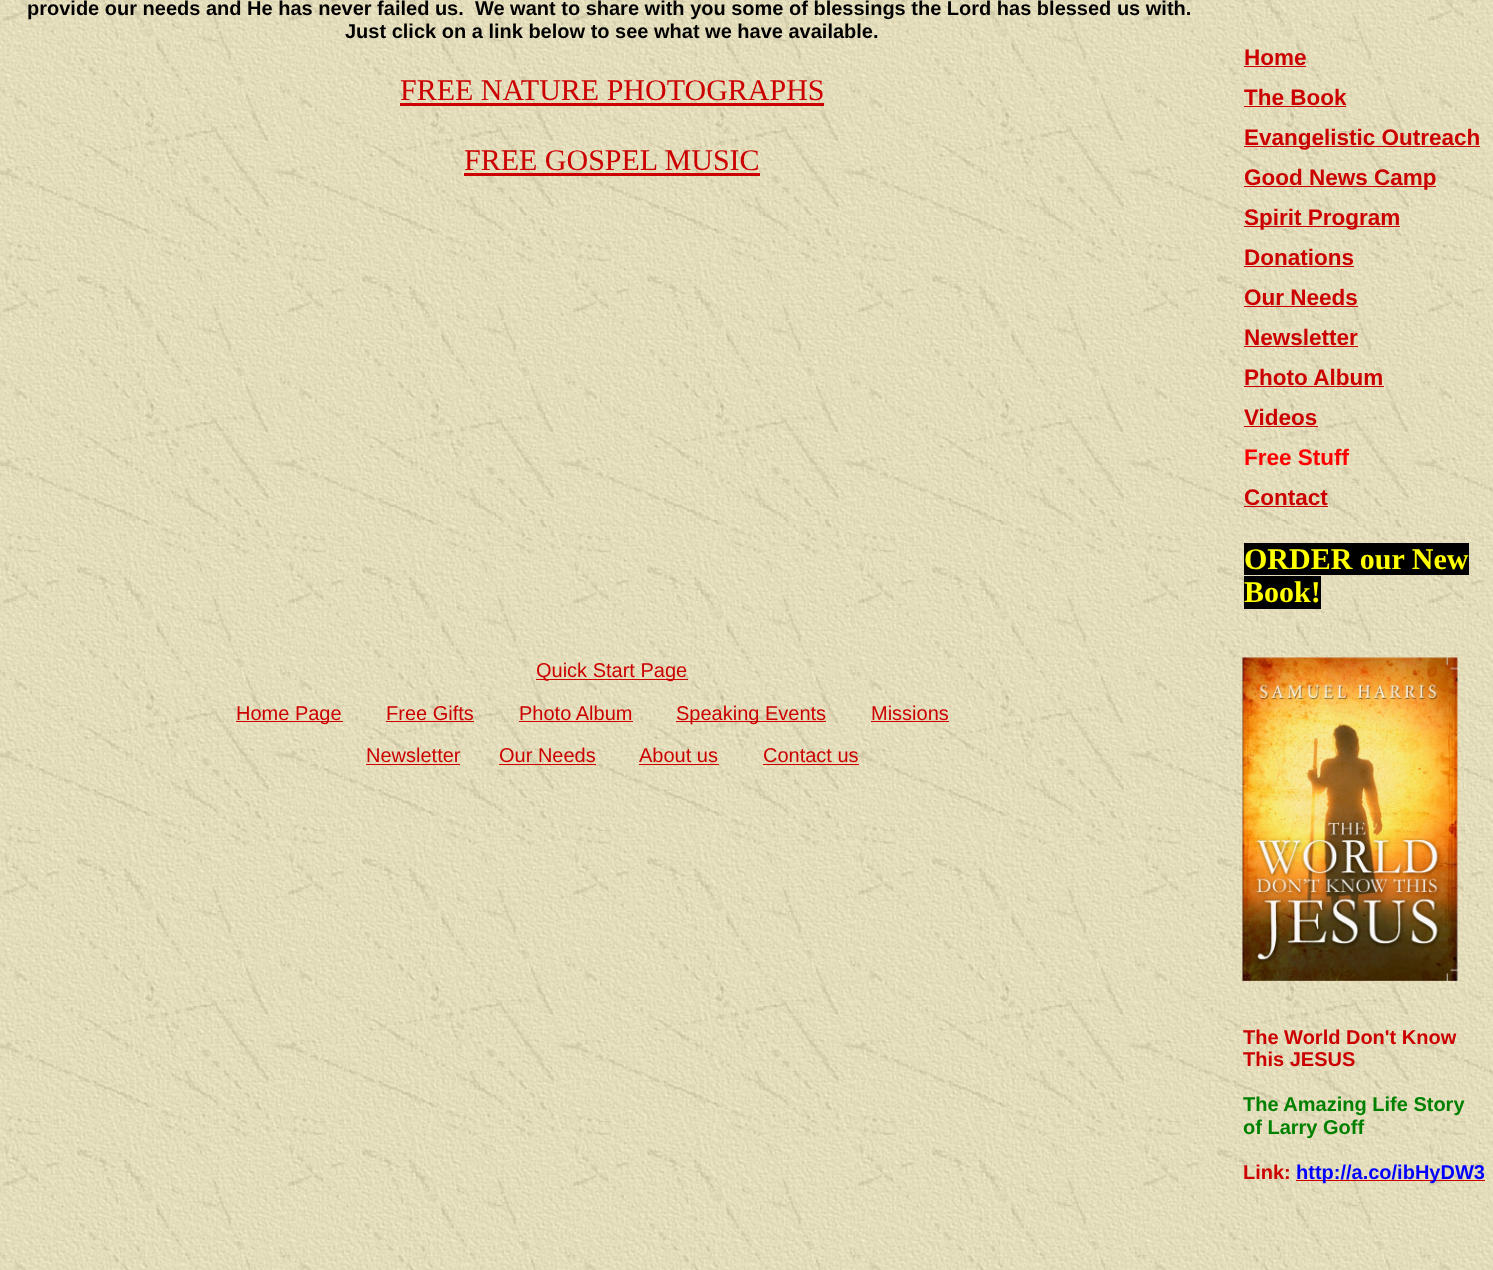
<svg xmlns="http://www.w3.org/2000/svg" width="1493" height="1270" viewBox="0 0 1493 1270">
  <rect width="100%" height="100%" fill="#fff"/>
  <image x="0" y="0" width="1493" height="1270" href="img/1.png"/>
  <path d="M400 103h424v3H400z" fill="#c00"/>
  <path d="M464 173h296v3H464z" fill="#c00"/>
  <path d="M536 679h152v1H536z" fill="#c00"/>
  <path d="M236 721h107v1H236z" fill="#c00"/>
  <path d="M386 721h88v1H386z" fill="#c00"/>
  <path d="M519 721h114v1H519z" fill="#c00"/>
  <path d="M676 721h150v1H676z" fill="#c00"/>
  <path d="M871 721h78v1H871z" fill="#c00"/>
  <path d="M366 764h94v1H366z" fill="#c00"/>
  <path d="M499 764h97v1H499z" fill="#c00"/>
  <path d="M639 764h80v1H639z" fill="#c00"/>
  <path d="M763 764h96v1H763z" fill="#c00"/>
  <path d="M1244 66h62v1H1244z" fill="#c00"/>
  <path d="M1244 106h102v1H1244z" fill="#c00"/>
  <path d="M1244 146h236v1H1244z" fill="#c00"/>
  <path d="M1244 186h192v1H1244z" fill="#c00"/>
  <path d="M1244 226h156v1H1244z" fill="#c00"/>
  <path d="M1244 266h110v1H1244z" fill="#c00"/>
  <path d="M1244 306h114v1H1244z" fill="#c00"/>
  <path d="M1244 346h114v1H1244z" fill="#c00"/>
  <path d="M1244 386h140v1H1244z" fill="#c00"/>
  <path d="M1244 426h74v1H1244z" fill="#c00"/>
  <path d="M1244 506h84v1H1244z" fill="#c00"/>
  <path d="M1244 543h225v32H1244z" fill="#000"/>
  <path d="M1244 576h77v33H1244z" fill="#000"/>
  <image x="1242" y="657" width="216" height="324" href="img/2.png"/>
  <path d="M1296 1180h189v1H1296z" fill="#c00"/>
  <g font-family="Liberation Sans" font-size="20" font-weight="bold" fill="#000">
    <text x="27" y="15" xml:space="preserve">provide our needs and He has never failed us.  We want to share with you some of blessings the Lord has blessed us with.</text>
    <text x="345" y="38">Just click on a link below to see what we have available.</text>
  </g>
  <g font-family="Liberation Serif" font-size="30" fill="#c00">
    <text x="400" y="100">FREE NATURE PHOTOGRAPHS</text>
    <text x="464" y="170">FREE GOSPEL MUSIC</text>
  </g>
  <g font-family="Liberation Sans" font-size="20" fill="#c00">
    <text x="536" y="677">Quick Start Page</text>
    <text x="236" y="720">Home Page</text>
    <text x="386" y="720">Free Gifts</text>
    <text x="519" y="720">Photo Album</text>
    <text x="676" y="720">Speaking Events</text>
    <text x="871" y="720">Missions</text>
    <text x="366" y="762">Newsletter</text>
    <text x="499" y="762">Our Needs</text>
    <text x="639" y="762">About us</text>
    <text x="763" y="762">Contact us</text>
  </g>
  <g font-family="Liberation Sans" font-size="22.5" font-weight="bold" fill="#c00">
    <text x="1244" y="65">Home</text>
    <text x="1244" y="105">The Book</text>
    <text x="1244" y="145">Evangelistic Outreach</text>
    <text x="1244" y="185">Good News Camp</text>
    <text x="1244" y="225">Spirit Program</text>
    <text x="1244" y="265">Donations</text>
    <text x="1244" y="305">Our Needs</text>
    <text x="1244" y="345">Newsletter</text>
    <text x="1244" y="385">Photo Album</text>
    <text x="1244" y="425">Videos</text>
  </g>
  <text x="1244" y="465" font-family="Liberation Sans" font-size="22.5" font-weight="bold" fill="#f00">Free Stuff</text>
  <text x="1244" y="505" font-family="Liberation Sans" font-size="22.5" font-weight="bold" fill="#c00">Contact</text>
  <g font-family="Liberation Serif" font-size="30" font-weight="bold" fill="#ff0">
    <text x="1244" y="569">ORDER our New</text>
    <text x="1244" y="602">Book!</text>
  </g>
  <g font-family="Liberation Sans" font-size="20" font-weight="bold" fill="#c00">
    <text x="1243" y="1044">The World Don't Know</text>
    <text x="1243" y="1066">This JESUS</text>
  </g>
  <g font-family="Liberation Sans" font-size="20" font-weight="bold" fill="#008000">
    <text x="1243" y="1111">The Amazing Life Story</text>
    <text x="1243" y="1134">of Larry Goff</text>
  </g>
  <text x="1243" y="1179" font-family="Liberation Sans" font-size="20" font-weight="bold" fill="#c00">Link:</text>
  <text x="1296" y="1179" font-family="Liberation Sans" font-size="20" font-weight="bold" fill="#00f">http://a.co/ibHyDW3</text>
</svg>
